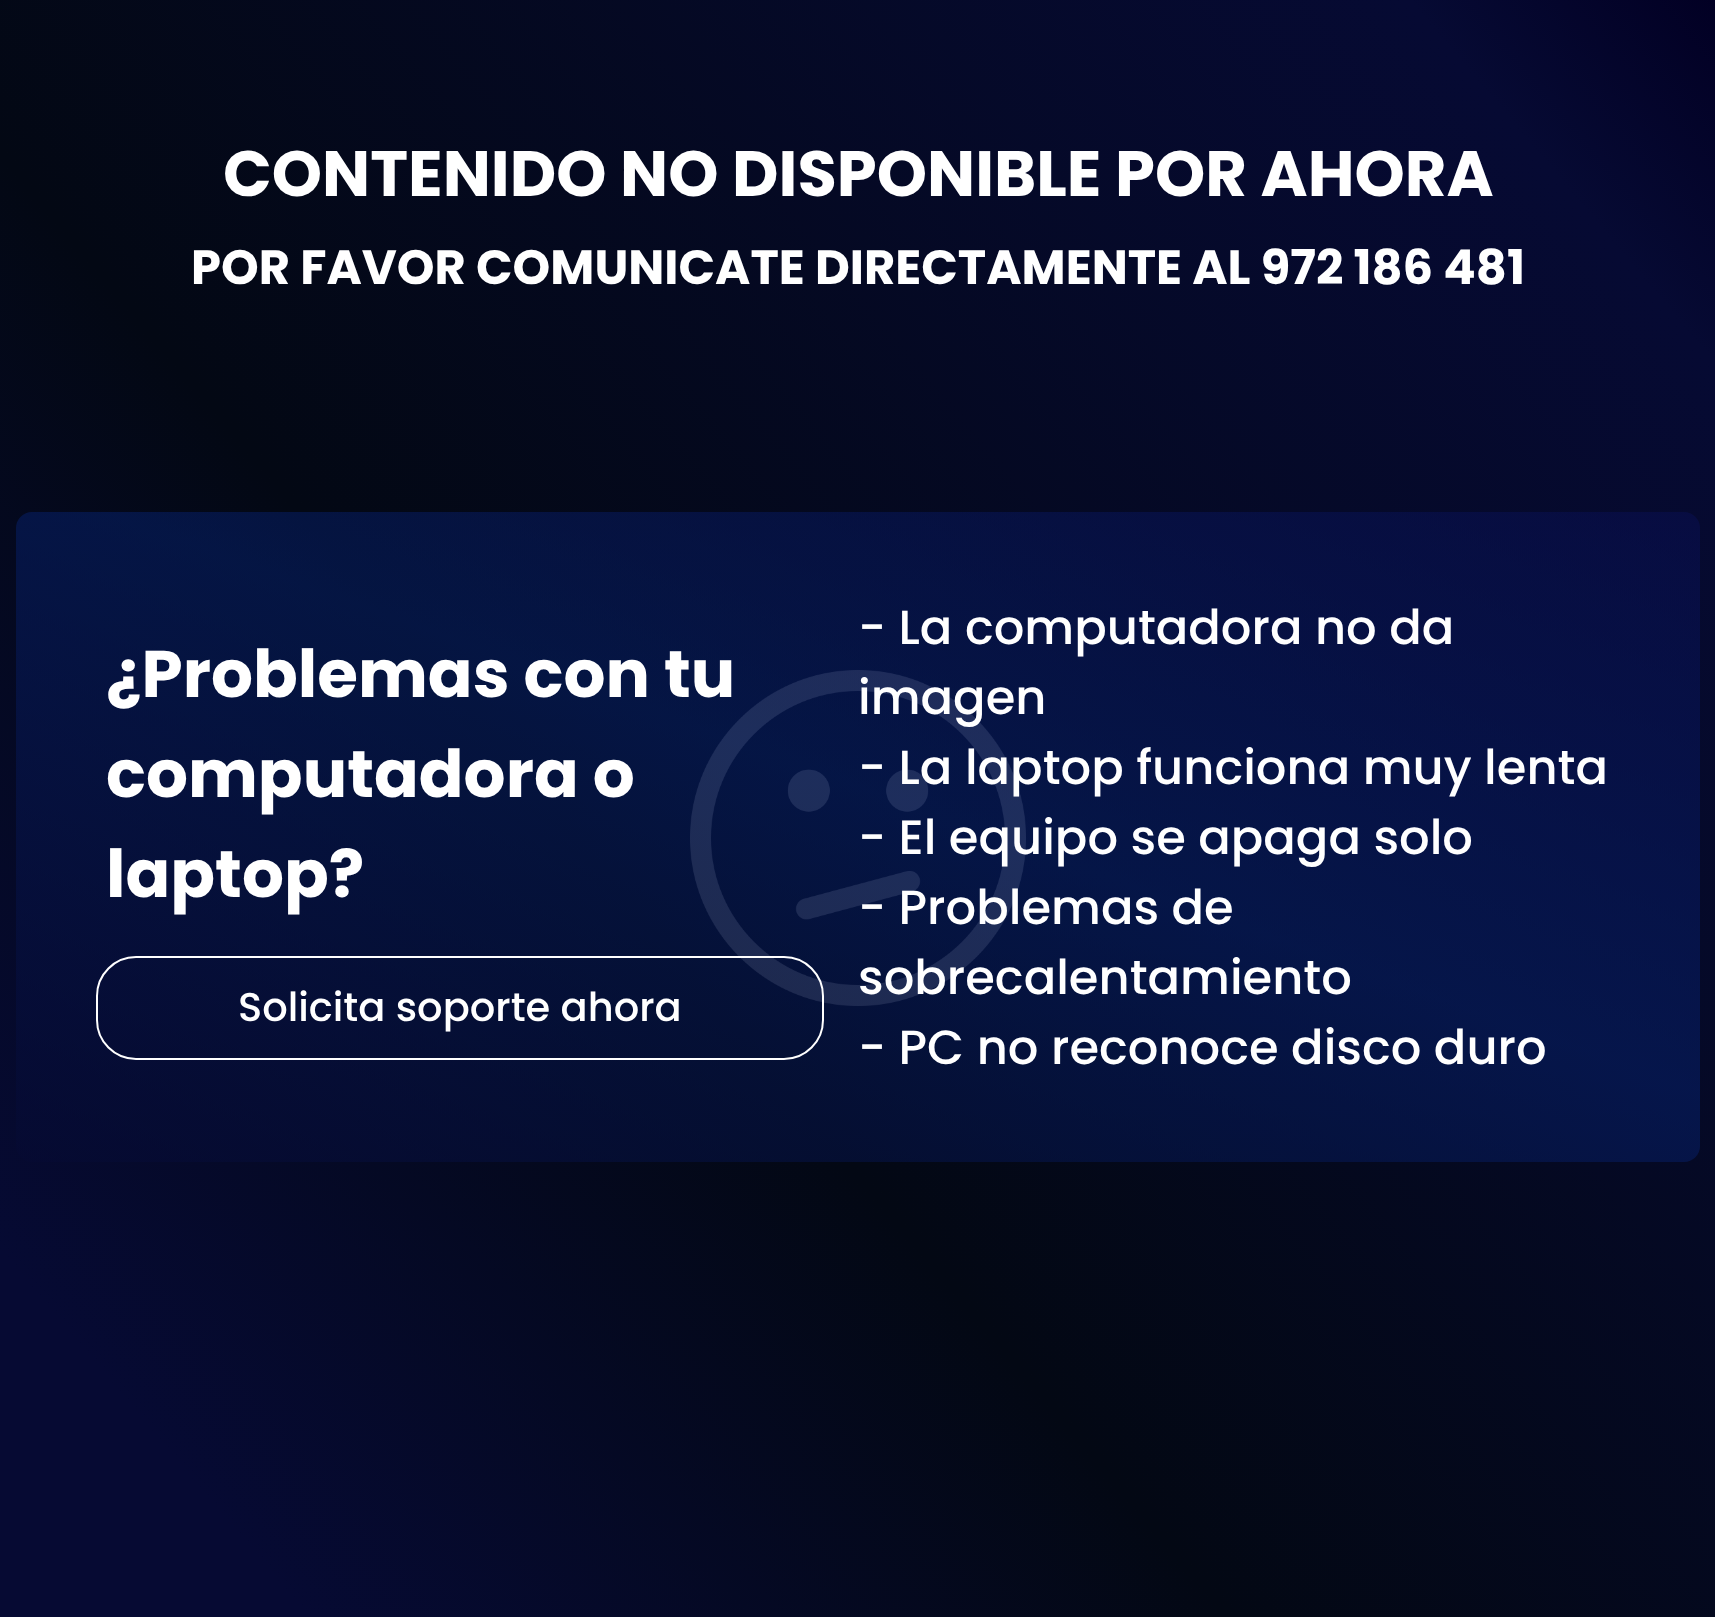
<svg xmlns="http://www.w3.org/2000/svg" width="1715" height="1617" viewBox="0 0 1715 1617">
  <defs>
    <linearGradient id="g1" gradientUnits="userSpaceOnUse" x1="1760" y1="52" x2="-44" y2="1566"><stop offset="0" stop-color="#020024"/><stop offset="0.1" stop-color="#060a33"/><stop offset="0.6" stop-color="#030814"/><stop offset="0.9" stop-color="#060a33"/></linearGradient>
    <linearGradient id="g2" gradientUnits="userSpaceOnUse" x1="1061" y1="279" x2="655" y2="1395"><stop offset="0" stop-color="#020024" stop-opacity="0.5"/><stop offset="0" stop-color="#090f53" stop-opacity="0.5"/><stop offset="0.46" stop-color="#062270" stop-opacity="0.5"/><stop offset="1" stop-color="#060a33" stop-opacity="0.5"/></linearGradient>
  </defs>
  <rect width="100%" height="100%" fill="#fff"/>
  <path d="M0 0h1715v1617H0z" fill="url(#g1)"/>
  <image x="690" y="670" width="336" height="336" href="img/1.png"/>
  <rect x="16" y="512" width="1684" height="650" rx="16" fill="url(#g2)"/>
  <rect x="97" y="957" width="726" height="102" rx="39" fill="none" stroke="#fff" stroke-width="2"/>
  <text x="223" y="196" font-family="Poppins" font-size="64" font-weight="bold" fill="#fff">CONTENIDO NO DISPONIBLE POR AHORA</text>
  <text x="191" y="284" font-family="Poppins" font-size="48" font-weight="bold" fill="#fff">POR FAVOR COMUNICATE DIRECTAMENTE AL 972 186 481</text>
  <g font-family="Poppins" font-size="66" font-weight="bold" fill="#fff">
    <text x="106" y="697">¿Problemas con tu</text>
    <text x="106" y="797">computadora o</text>
    <text x="106" y="897">laptop?</text>
  </g>
  <text x="238" y="1021" font-family="Poppins" font-size="40" font-weight="500" fill="#fff">Solicita soporte ahora</text>
  <g font-family="Poppins" font-size="48" font-weight="500" fill="#fff">
    <text x="858" y="644">- La computadora no da</text>
    <text x="858" y="714">imagen</text>
    <text x="858" y="784">- La laptop funciona muy lenta</text>
    <text x="858" y="854">- El equipo se apaga solo</text>
    <text x="858" y="924">- Problemas de</text>
    <text x="858" y="994">sobrecalentamiento</text>
    <text x="858" y="1064">- PC no reconoce disco duro</text>
  </g>
</svg>
